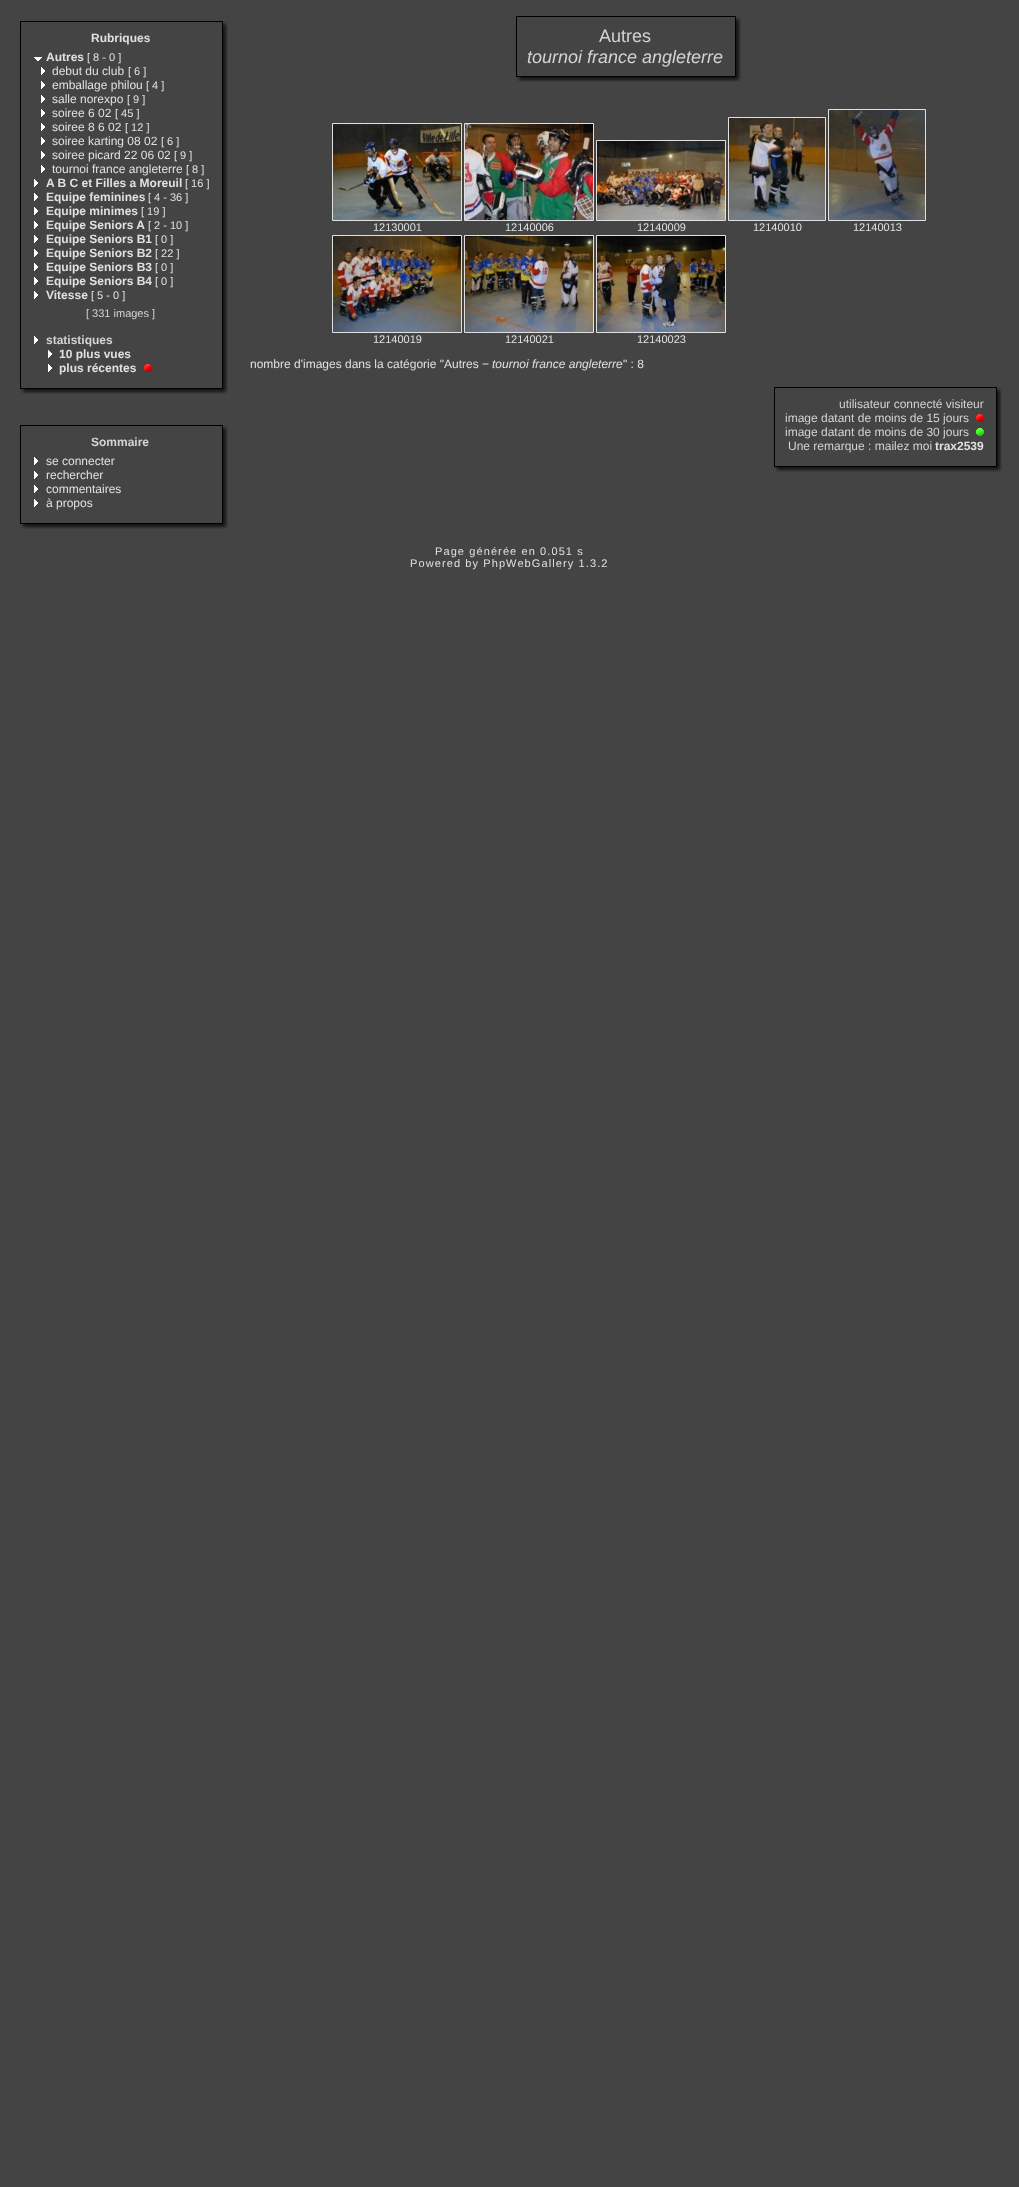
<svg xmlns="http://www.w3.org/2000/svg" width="1019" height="2187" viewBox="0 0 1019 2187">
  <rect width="100%" height="100%" fill="#444"/>
  <image x="15" y="17" width="14" height="14" href="img/1.png"/>
  <path d="M29 21h183v1H29z" fill="#000"/>
  <image x="212" y="18" width="16" height="13" href="img/2.png"/>
  <path d="M20 31h1v349H20z" fill="#000"/>
  <image x="34" y="57" width="8" height="4" href="img/3.png"/>
  <image x="41" y="67" width="4" height="8" href="img/4.png"/>
  <image x="41" y="81" width="4" height="8" href="img/4.png"/>
  <image x="41" y="95" width="4" height="8" href="img/4.png"/>
  <image x="41" y="109" width="4" height="8" href="img/4.png"/>
  <image x="41" y="123" width="4" height="8" href="img/4.png"/>
  <image x="41" y="137" width="4" height="8" href="img/4.png"/>
  <image x="41" y="151" width="4" height="8" href="img/4.png"/>
  <image x="41" y="165" width="4" height="8" href="img/4.png"/>
  <image x="34" y="179" width="4" height="8" href="img/4.png"/>
  <image x="34" y="193" width="4" height="8" href="img/4.png"/>
  <image x="34" y="207" width="4" height="8" href="img/4.png"/>
  <image x="34" y="221" width="4" height="8" href="img/4.png"/>
  <image x="34" y="235" width="4" height="8" href="img/4.png"/>
  <image x="34" y="249" width="4" height="8" href="img/4.png"/>
  <image x="34" y="263" width="4" height="8" href="img/4.png"/>
  <image x="34" y="277" width="4" height="8" href="img/4.png"/>
  <image x="34" y="291" width="4" height="8" href="img/4.png"/>
  <image x="34" y="336" width="4" height="8" href="img/4.png"/>
  <image x="48" y="350" width="4" height="8" href="img/4.png"/>
  <image x="48" y="364" width="4" height="8" href="img/4.png"/>
  <image x="144" y="364" width="8" height="8" href="img/5.png"/>
  <image x="222" y="31" width="6" height="349" href="img/6.png"/>
  <image x="19" y="380" width="10" height="14" href="img/7.png"/>
  <image x="29" y="388" width="183" height="6" href="img/8.png"/>
  <image x="212" y="380" width="16" height="14" href="img/9.png"/>
  <image x="15" y="421" width="14" height="14" href="img/1.png"/>
  <path d="M29 425h183v1H29z" fill="#000"/>
  <image x="212" y="422" width="16" height="13" href="img/2.png"/>
  <path d="M20 435h1v80H20z" fill="#000"/>
  <image x="34" y="457" width="4" height="8" href="img/4.png"/>
  <image x="34" y="471" width="4" height="8" href="img/4.png"/>
  <image x="34" y="485" width="4" height="8" href="img/4.png"/>
  <image x="34" y="499" width="4" height="8" href="img/4.png"/>
  <image x="222" y="435" width="6" height="80" href="img/10.png"/>
  <image x="19" y="515" width="10" height="14" href="img/7.png"/>
  <image x="29" y="523" width="183" height="6" href="img/8.png"/>
  <image x="212" y="515" width="16" height="14" href="img/9.png"/>
  <image x="511" y="12" width="14" height="14" href="img/1.png"/>
  <path d="M525 16h200v1H525z" fill="#000"/>
  <image x="725" y="13" width="16" height="13" href="img/2.png"/>
  <path d="M516 26h1v42H516z" fill="#000"/>
  <image x="735" y="26" width="6" height="42" href="img/11.png"/>
  <image x="515" y="68" width="10" height="14" href="img/7.png"/>
  <image x="525" y="76" width="200" height="6" href="img/12.png"/>
  <image x="725" y="68" width="16" height="14" href="img/9.png"/>
  <path d="M332.5 123.5h129v97H332.5z" fill="none" stroke="#e0e0e0"/>
  <image x="333" y="124" width="128" height="96" href="img/13.png"/>
  <path d="M464.5 123.5h129v97H464.5z" fill="none" stroke="#e0e0e0"/>
  <image x="465" y="124" width="128" height="96" href="img/14.png"/>
  <path d="M596.5 140.5h129v80H596.5z" fill="none" stroke="#e0e0e0"/>
  <image x="597" y="141" width="128" height="79" href="img/15.png"/>
  <path d="M728.5 117.5h97v103H728.5z" fill="none" stroke="#e0e0e0"/>
  <image x="729" y="118" width="96" height="102" href="img/16.png"/>
  <path d="M828.5 109.5h97v111H828.5z" fill="none" stroke="#e0e0e0"/>
  <image x="829" y="110" width="96" height="110" href="img/17.png"/>
  <path d="M332.5 235.5h129v97H332.5z" fill="none" stroke="#e0e0e0"/>
  <image x="333" y="236" width="128" height="96" href="img/18.png"/>
  <path d="M464.5 235.5h129v97H464.5z" fill="none" stroke="#e0e0e0"/>
  <image x="465" y="236" width="128" height="96" href="img/19.png"/>
  <path d="M596.5 235.5h129v97H596.5z" fill="none" stroke="#e0e0e0"/>
  <image x="597" y="236" width="128" height="96" href="img/20.png"/>
  <image x="769" y="383" width="14" height="14" href="img/1.png"/>
  <path d="M783 387h203v1H783z" fill="#000"/>
  <image x="986" y="384" width="16" height="13" href="img/2.png"/>
  <path d="M774 397h1v61H774z" fill="#000"/>
  <image x="976" y="414" width="8" height="8" href="img/5.png"/>
  <image x="976" y="428" width="8" height="8" href="img/21.png"/>
  <image x="996" y="397" width="6" height="61" href="img/22.png"/>
  <image x="773" y="458" width="10" height="14" href="img/7.png"/>
  <image x="783" y="466" width="203" height="6" href="img/23.png"/>
  <image x="986" y="458" width="16" height="14" href="img/9.png"/>
  <g font-family="Liberation Sans" font-size="12" font-weight="bold" fill="#e0e0e0">
    <text x="91" y="42">Rubriques</text>
    <text x="46" y="61">Autres</text>
  </g>
  <text x="87" y="61" font-family="Liberation Sans" font-size="11" fill="#e0e0e0">[ 8 - 0 ]</text>
  <text x="52" y="75" font-family="Liberation Sans" font-size="12" fill="#e0e0e0">debut du club</text>
  <text x="128" y="75" font-family="Liberation Sans" font-size="11" fill="#e0e0e0">[ 6 ]</text>
  <text x="52" y="89" font-family="Liberation Sans" font-size="12" fill="#e0e0e0">emballage philou</text>
  <text x="146" y="89" font-family="Liberation Sans" font-size="11" fill="#e0e0e0">[ 4 ]</text>
  <text x="52" y="103" font-family="Liberation Sans" font-size="12" fill="#e0e0e0">salle norexpo</text>
  <text x="127" y="103" font-family="Liberation Sans" font-size="11" fill="#e0e0e0">[ 9 ]</text>
  <text x="52" y="117" font-family="Liberation Sans" font-size="12" fill="#e0e0e0">soiree 6 02</text>
  <text x="115" y="117" font-family="Liberation Sans" font-size="11" fill="#e0e0e0">[ 45 ]</text>
  <text x="52" y="131" font-family="Liberation Sans" font-size="12" fill="#e0e0e0">soiree 8 6 02</text>
  <text x="125" y="131" font-family="Liberation Sans" font-size="11" fill="#e0e0e0">[ 12 ]</text>
  <text x="52" y="145" font-family="Liberation Sans" font-size="12" fill="#e0e0e0">soiree karting 08 02</text>
  <text x="161" y="145" font-family="Liberation Sans" font-size="11" fill="#e0e0e0">[ 6 ]</text>
  <text x="52" y="159" font-family="Liberation Sans" font-size="12" fill="#e0e0e0">soiree picard 22 06 02</text>
  <text x="174" y="159" font-family="Liberation Sans" font-size="11" fill="#e0e0e0">[ 9 ]</text>
  <text x="52" y="173" font-family="Liberation Sans" font-size="12" fill="#e0e0e0">tournoi france angleterre</text>
  <text x="186" y="173" font-family="Liberation Sans" font-size="11" fill="#e0e0e0">[ 8 ]</text>
  <text x="46" y="187" font-family="Liberation Sans" font-size="12" font-weight="bold" fill="#e0e0e0">A B C et Filles a Moreuil</text>
  <text x="185" y="187" font-family="Liberation Sans" font-size="11" fill="#e0e0e0">[ 16 ]</text>
  <text x="46" y="201" font-family="Liberation Sans" font-size="12" font-weight="bold" fill="#e0e0e0">Equipe feminines</text>
  <text x="148" y="201" font-family="Liberation Sans" font-size="11" fill="#e0e0e0">[ 4 - 36 ]</text>
  <text x="46" y="215" font-family="Liberation Sans" font-size="12" font-weight="bold" fill="#e0e0e0">Equipe minimes</text>
  <text x="141" y="215" font-family="Liberation Sans" font-size="11" fill="#e0e0e0">[ 19 ]</text>
  <text x="46" y="229" font-family="Liberation Sans" font-size="12" font-weight="bold" fill="#e0e0e0">Equipe Seniors A</text>
  <text x="148" y="229" font-family="Liberation Sans" font-size="11" fill="#e0e0e0">[ 2 - 10 ]</text>
  <text x="46" y="243" font-family="Liberation Sans" font-size="12" font-weight="bold" fill="#e0e0e0">Equipe Seniors B1</text>
  <text x="155" y="243" font-family="Liberation Sans" font-size="11" fill="#e0e0e0">[ 0 ]</text>
  <text x="46" y="257" font-family="Liberation Sans" font-size="12" font-weight="bold" fill="#e0e0e0">Equipe Seniors B2</text>
  <text x="155" y="257" font-family="Liberation Sans" font-size="11" fill="#e0e0e0">[ 22 ]</text>
  <text x="46" y="271" font-family="Liberation Sans" font-size="12" font-weight="bold" fill="#e0e0e0">Equipe Seniors B3</text>
  <text x="155" y="271" font-family="Liberation Sans" font-size="11" fill="#e0e0e0">[ 0 ]</text>
  <text x="46" y="285" font-family="Liberation Sans" font-size="12" font-weight="bold" fill="#e0e0e0">Equipe Seniors B4</text>
  <text x="155" y="285" font-family="Liberation Sans" font-size="11" fill="#e0e0e0">[ 0 ]</text>
  <text x="46" y="299" font-family="Liberation Sans" font-size="12" font-weight="bold" fill="#e0e0e0">Vitesse</text>
  <text x="91" y="299" font-family="Liberation Sans" font-size="11" fill="#e0e0e0">[ 5 - 0 ]</text>
  <text x="86" y="317" font-family="Liberation Sans" font-size="11" fill="#d3d3d3">[ 331 images ]</text>
  <text x="46" y="344" font-family="Liberation Sans" font-size="12" font-weight="bold" fill="#d3d3d3">statistiques</text>
  <g font-family="Liberation Sans" font-size="12" font-weight="bold" fill="#e0e0e0">
    <text x="59" y="358">10 plus vues</text>
    <text x="59" y="372">plus récentes</text>
  </g>
  <text x="91" y="446" font-family="Liberation Sans" font-size="12" font-weight="bold" fill="#d3d3d3">Sommaire</text>
  <g font-family="Liberation Sans" font-size="12" fill="#e0e0e0">
    <text x="46" y="465">se connecter</text>
    <text x="46" y="479">rechercher</text>
    <text x="46" y="493">commentaires</text>
    <text x="46" y="507">à propos</text>
  </g>
  <text x="599" y="42" font-family="Liberation Sans" font-size="18" fill="#d3d3d3">Autres</text>
  <text x="527" y="63" font-family="Liberation Sans" font-size="18" font-style="italic" fill="#d3d3d3">tournoi france angleterre</text>
  <g font-family="Liberation Sans" font-size="11" fill="#e0e0e0">
    <text x="373" y="231">12130001</text>
    <text x="505" y="231">12140006</text>
    <text x="637" y="231">12140009</text>
    <text x="753" y="231">12140010</text>
    <text x="853" y="231">12140013</text>
    <text x="373" y="343">12140019</text>
    <text x="505" y="343">12140021</text>
    <text x="637" y="343">12140023</text>
  </g>
  <text x="250" y="368" font-family="Liberation Sans" font-size="12" fill="#e0e0e0">nombre d'images dans la catégorie "Autres −</text>
  <text x="492" y="368" font-family="Liberation Sans" font-size="12" font-style="italic" fill="#e0e0e0">tournoi france angleterre</text>
  <text x="623" y="368" font-family="Liberation Sans" font-size="12" fill="#e0e0e0">" : 8</text>
  <g font-family="Liberation Sans" font-size="12" fill="#d3d3d3">
    <text x="839" y="408">utilisateur connecté visiteur</text>
    <text x="785" y="422">image datant de moins de 15 jours</text>
    <text x="785" y="436">image datant de moins de 30 jours</text>
    <text x="788" y="450">Une remarque : mailez moi</text>
  </g>
  <text x="935" y="450" font-family="Liberation Sans" font-size="12" font-weight="bold" fill="#e0e0e0">trax2539</text>
  <g font-family="Liberation Sans" font-size="11" letter-spacing="1.1" fill="#e0e0e0">
    <text x="435" y="555">Page générée en 0.051 s</text>
    <text x="410" y="567">Powered by PhpWebGallery 1.3.2</text>
  </g>
</svg>
